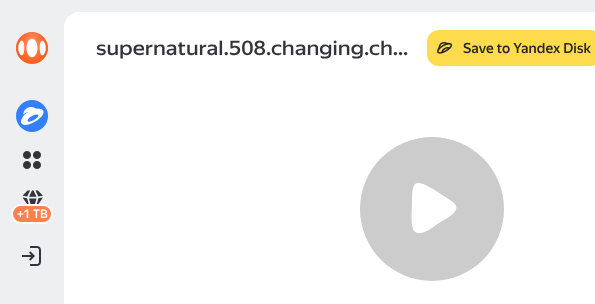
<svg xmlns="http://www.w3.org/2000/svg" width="595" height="304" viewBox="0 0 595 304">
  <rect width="100%" height="100%" fill="#edeff0"/>
  <rect x="64" y="12" width="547" height="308" rx="16" fill="#fff"/>
  <path d="M80 12H595C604 12 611 19 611 28V85H64V28C64 19 71 12 80 12Z" fill="#fff"/>
  <rect x="427" y="30" width="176" height="36" rx="12" fill="#ffdb4d"/>
  <image x="437" y="42" width="16" height="12" href="img/1.png"/>
  <circle cx="432" cy="209" r="72" fill="#ccc"/>
  <path d="M453 202C464 211 445 219 439 223C433 227 427 232 421 233C419 233 417 233 415 232C410 228 412 209 412 204C412 183 413 177 433 189L453 202" fill="#fff" fill-rule="evenodd"/>
  <image x="16" y="32" width="32" height="32" href="img/2.png"/>
  <circle cx="32" cy="116" r="16" fill="#3380ff"/>
  <image x="21" y="107" width="23" height="18" href="img/3.png"/>
  <image x="23" y="151" width="18" height="18" href="img/4.png"/>
  <image x="22" y="190" width="21" height="14" href="img/5.png"/>
  <rect x="12" y="205" width="40" height="18" rx="9" fill="#ff7f4d" stroke="#fff" stroke-width="2"/>
  <image x="22" y="246" width="19" height="20" href="img/6.png"/>
  <text x="96" y="55" font-family="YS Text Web" font-size="20" fill="#34343c">supernatural.508.changing.ch…</text>
  <text x="463" y="53" font-family="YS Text" font-size="14" font-weight="500" fill="#242429">Save to Yandex Disk</text>
  <text x="17" y="218" font-family="YS Text" font-size="12" font-weight="500" fill="#fff">+1 TB</text>
</svg>
